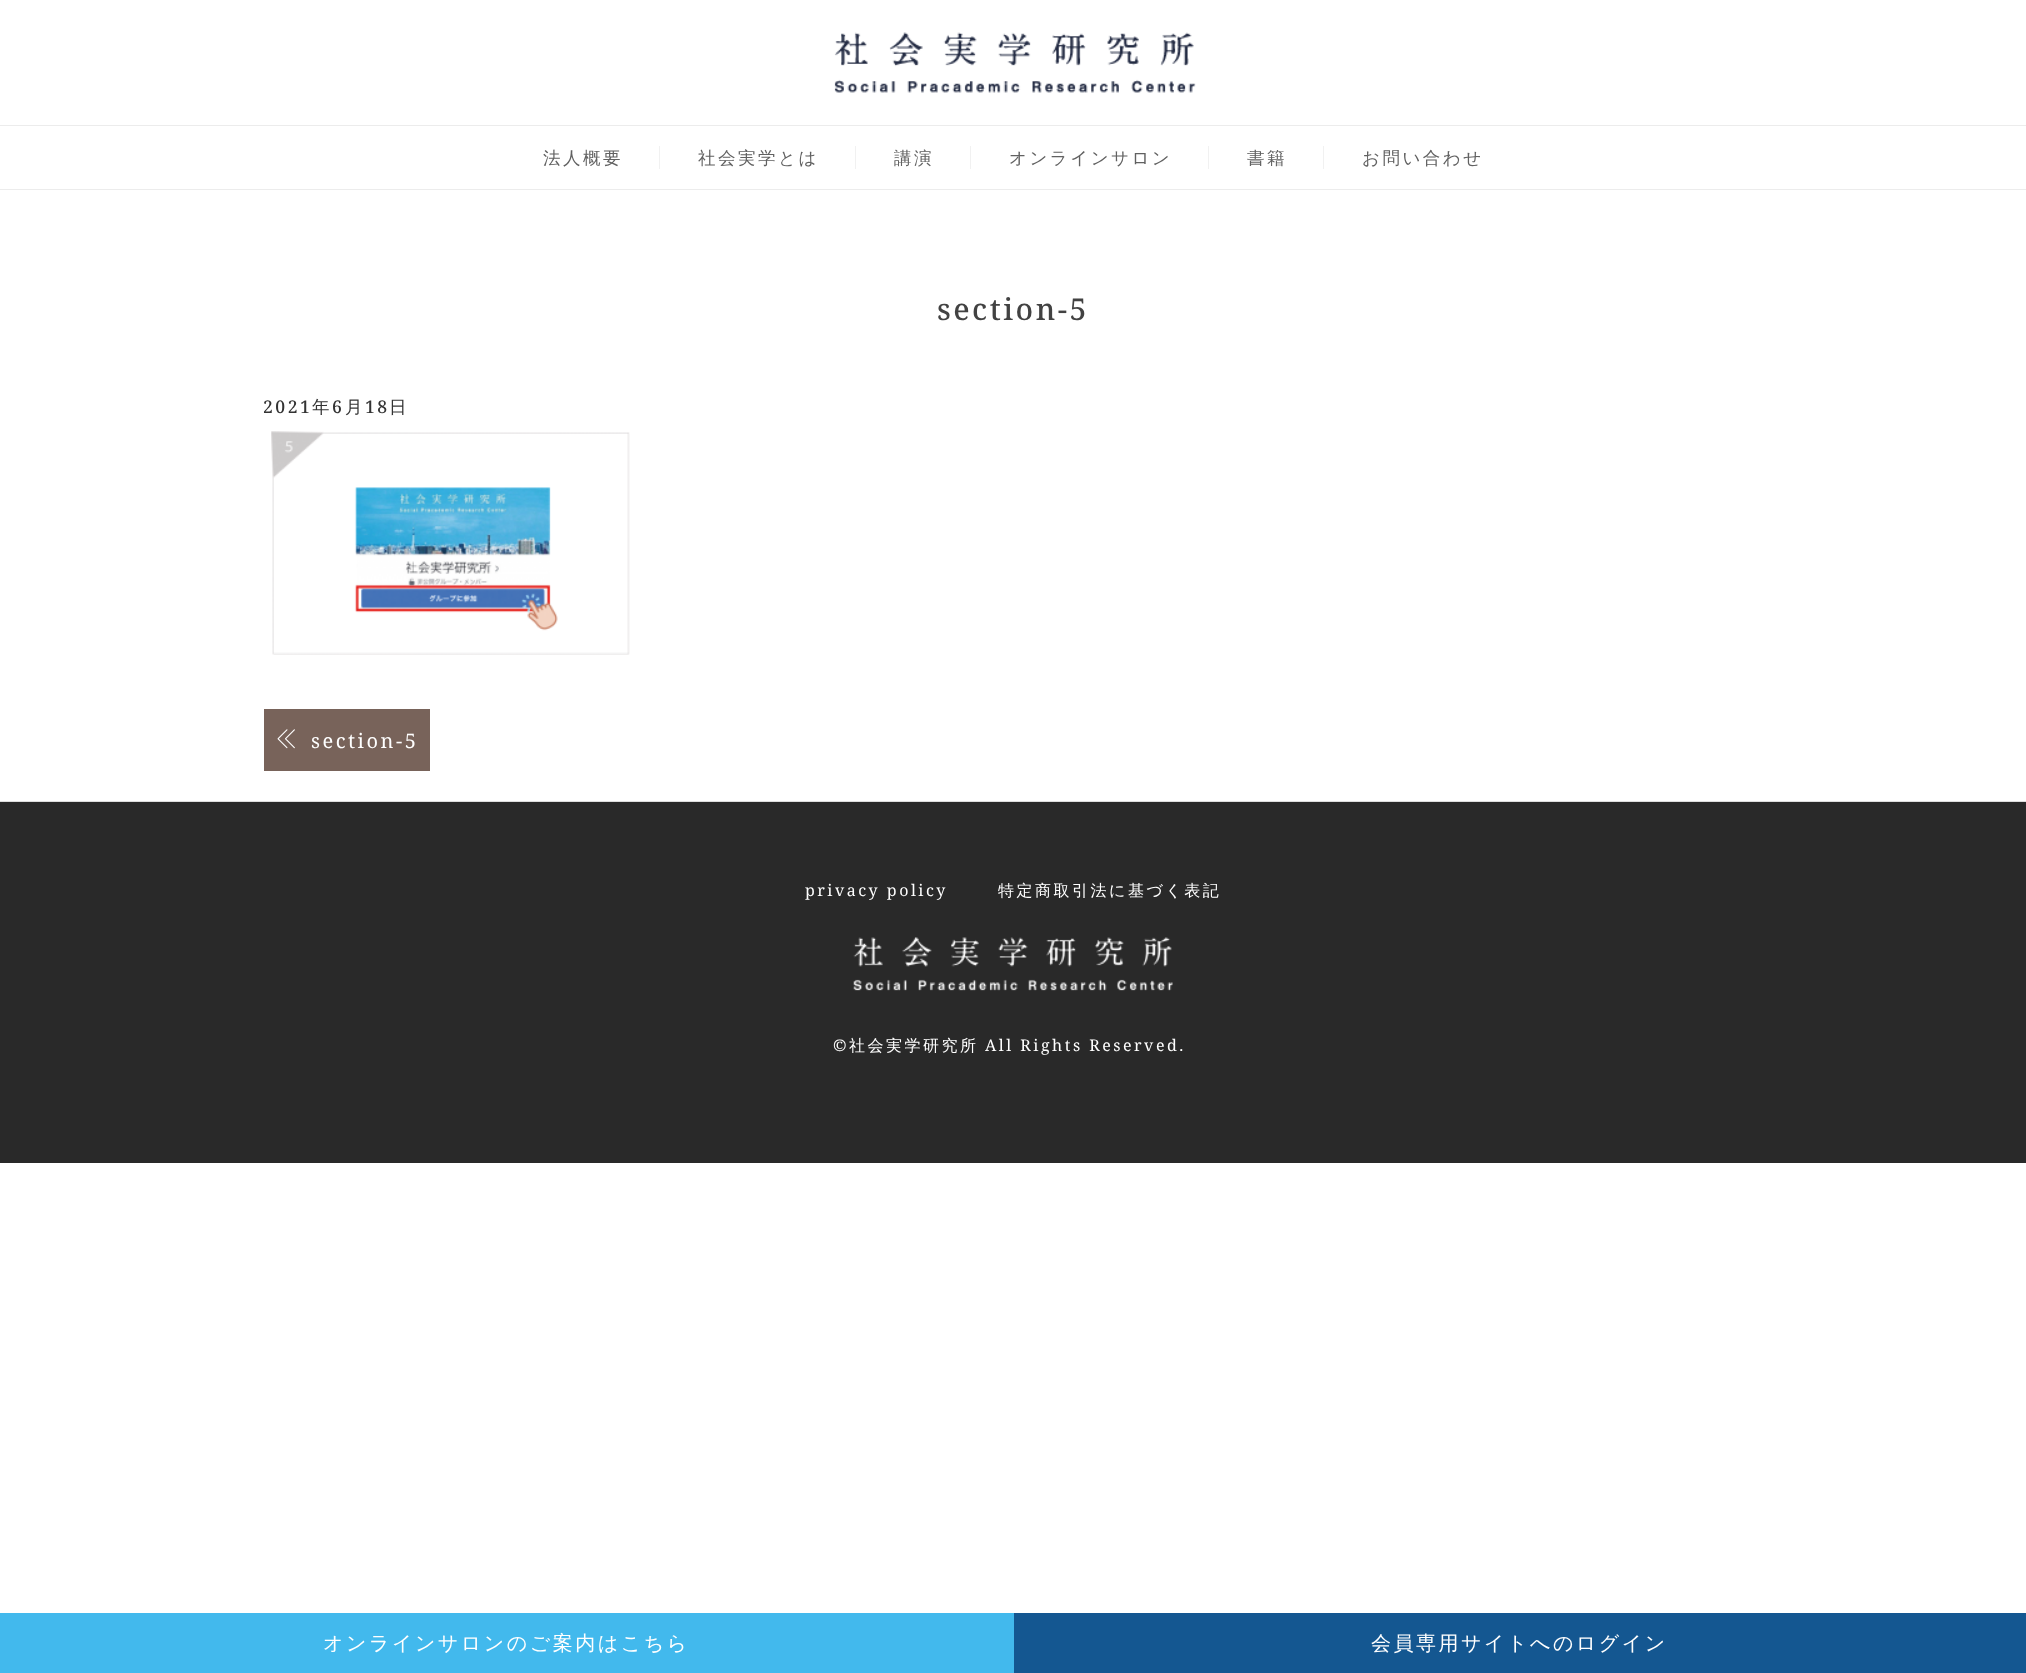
<svg xmlns="http://www.w3.org/2000/svg" width="2026" height="1673" viewBox="0 0 2026 1673">
  <rect width="100%" height="100%" fill="#fff"/>
  <image x="834" y="32" width="362" height="61" href="img/1.png"/>
  <path d="M0 125h2026v1H0z" fill="#ececec"/>
  <path d="M0 189h2026v1H0z" fill="#ececec"/>
  <path d="M659 146h1v23H659z" fill="#f1f1f1"/>
  <path d="M855 146h1v23H855z" fill="#f1f1f1"/>
  <path d="M970 146h1v23H970z" fill="#f1f1f1"/>
  <path d="M1208 146h1v23H1208z" fill="#f1f1f1"/>
  <path d="M1323 146h1v23H1323z" fill="#f1f1f1"/>
  <image x="271" y="431" width="359" height="224" href="img/2.png"/>
  <path d="M264 709h166v62H264z" fill="#78635a"/>
  <image x="277" y="729" width="18" height="20" href="img/3.png"/>
  <path d="M0 802h2026v361H0z" fill="#292929"/>
  <path d="M0 801h2026v1H0z" fill="#ddd"/>
  <image x="853" y="937" width="320" height="54" href="img/4.png"/>
  <path d="M0 1613h1014v60H0z" fill="#42b9ed"/>
  <path d="M1014 1613h1012v60H1014z" fill="#145791"/>
  <g font-family="WenQuanYi Zen Hei" font-size="17.5" font-weight="500" letter-spacing="2.5" fill="#616161">
    <text x="543" y="164">法人概要</text>
    <text x="698" y="164">社会実学とは</text>
    <text x="894" y="164">講演</text>
    <text x="1009" y="164">オンラインサロン</text>
    <text x="1247" y="164">書籍</text>
    <text x="1362" y="164">お問い合わせ</text>
  </g>
  <text x="937" y="320" font-family="Noto Serif" font-size="30" font-weight="500" letter-spacing="2.5" fill="#424242">section-5</text>
  <text x="263" y="413" font-family="Noto Serif" font-size="17.5" font-weight="500" letter-spacing="2.5" fill="#333">2021</text>
  <text x="312" y="413" font-family="WenQuanYi Zen Hei" font-size="17.5" font-weight="500" letter-spacing="2.5" fill="#333">年</text>
  <text x="332" y="413" font-family="Noto Serif" font-size="17.5" font-weight="500" letter-spacing="2.5" fill="#333">6</text>
  <text x="345" y="413" font-family="WenQuanYi Zen Hei" font-size="17.5" font-weight="500" letter-spacing="2.5" fill="#333">月</text>
  <text x="365" y="413" font-family="Noto Serif" font-size="17.5" font-weight="500" letter-spacing="2.5" fill="#333">18</text>
  <text x="389" y="413" font-family="WenQuanYi Zen Hei" font-size="17.5" font-weight="500" letter-spacing="2.5" fill="#333">日</text>
  <text x="311" y="748" font-family="Noto Serif" font-size="20" letter-spacing="2.5" fill="#fff">section-5</text>
  <text x="805" y="896" font-family="Noto Serif" font-size="16" letter-spacing="2.5" fill="#fff">privacy policy</text>
  <text x="998" y="896" font-family="WenQuanYi Zen Hei" font-size="16" font-weight="500" letter-spacing="2.5" fill="#fff">特定商取引法に基づく表記</text>
  <text x="833" y="1051" font-family="Noto Serif" font-size="16" letter-spacing="2.5" fill="#fff">©</text>
  <text x="849" y="1051" font-family="WenQuanYi Zen Hei" font-size="16" font-weight="500" letter-spacing="2.5" fill="#fff">社会実学研究所</text>
  <text x="985" y="1051" font-family="Noto Serif" font-size="16" letter-spacing="2.5" fill="#fff">All Rights Reserved.</text>
  <g font-family="WenQuanYi Zen Hei" font-size="20" font-weight="500" letter-spacing="2.5" fill="#fff">
    <text x="323" y="1650">オンラインサロンのご案内はこちら</text>
    <text x="1371" y="1650">会員専用サイトへのログイン</text>
  </g>
</svg>
